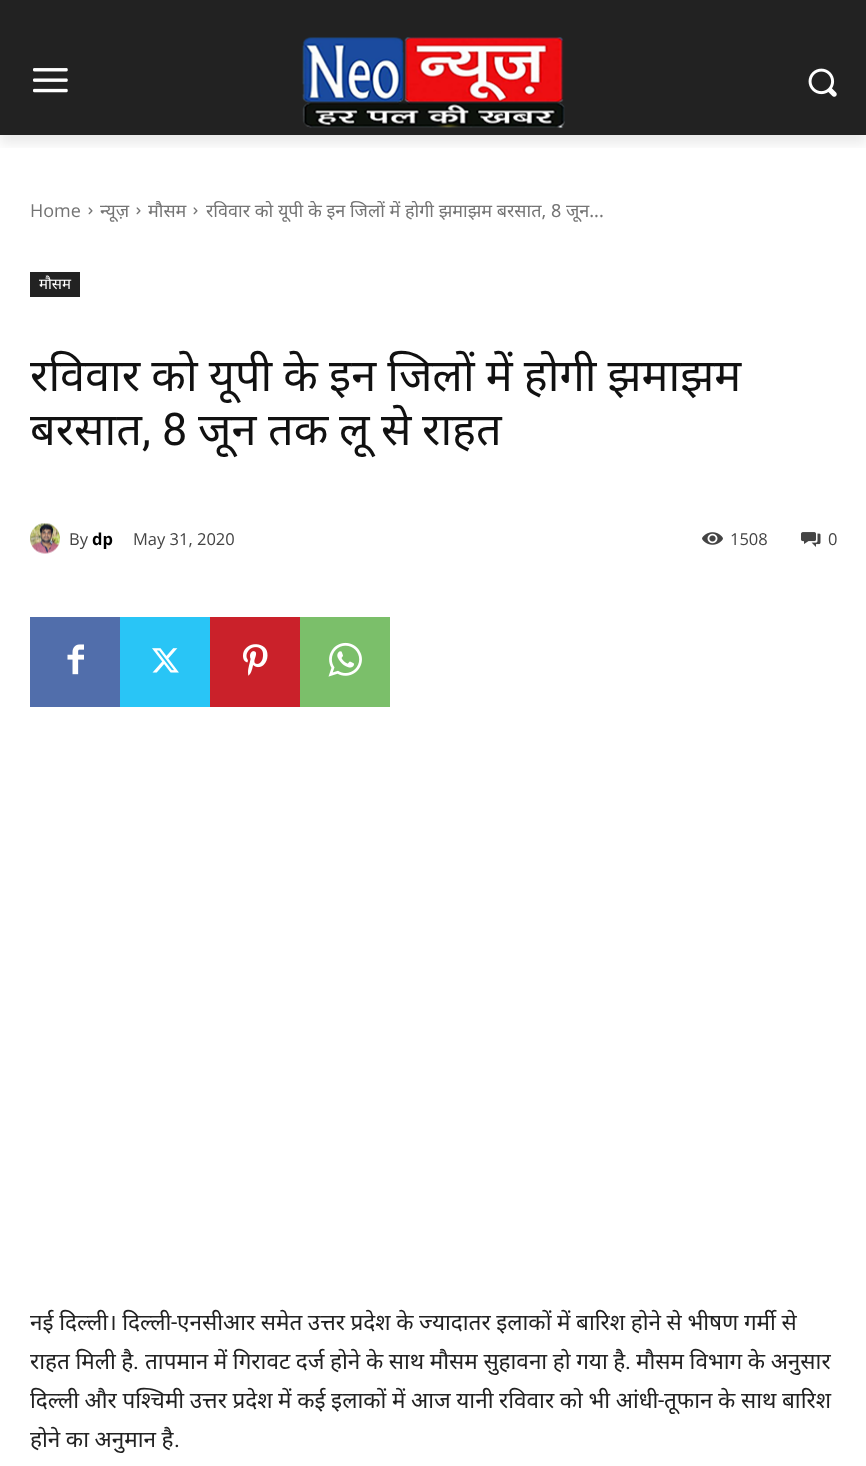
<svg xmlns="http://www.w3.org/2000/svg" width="866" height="1466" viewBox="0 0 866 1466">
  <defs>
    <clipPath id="clip1"><path d="M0 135h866v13H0z"/></clipPath>
  </defs>
  <rect width="100%" height="100%" fill="#fff"/>
  <path d="M0 0h866v135H0z" fill="#222"/>
  <image x="33" y="68" width="35" height="25" href="img/1.png"/>
  <image x="302" y="37" width="263" height="91" href="img/2.png"/>
  <image x="808" y="68" width="29" height="29" href="img/3.png"/>
  <g clip-path="url(#clip1)">
    <path d="M0 9h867v135H0z" fill="#00000014" filter="blur(6px)"/>
  </g>
  <image x="88" y="207" width="5" height="8" href="img/4.png"/>
  <image x="136" y="207" width="5" height="8" href="img/4.png"/>
  <image x="193" y="207" width="5" height="8" href="img/4.png"/>
  <path d="M30 272h50v25H30z" fill="#222"/>
  <image x="30" y="523" width="30" height="31" href="img/5.png"/>
  <image x="702" y="532" width="21" height="13" href="img/6.png"/>
  <image x="801" y="532" width="20" height="15" href="img/7.png"/>
  <path d="M30 617h90v90H30z" fill="#516eab"/>
  <image x="67" y="644" width="17" height="31" href="img/8.png"/>
  <path d="M120 617h90v90H120z" fill="#29c5f6"/>
  <image x="152" y="648" width="27" height="25" href="img/9.png"/>
  <path d="M210 617h90v90H210z" fill="#ca212a"/>
  <image x="243" y="644" width="25" height="32" href="img/10.png"/>
  <path d="M300 617h90v90H300z" fill="#7bbf6a"/>
  <image x="328" y="642" width="34" height="35" href="img/11.png"/>
  <text x="30" y="217" font-family="Open Sans" font-size="18" fill="#747474">Home</text>
  <g font-family="Noto Sans" font-size="18" fill="#747474">
    <text x="100" y="217">न्यूज़</text>
    <text x="148" y="217">मौसम</text>
    <text x="206" y="217">रविवार को यूपी के इन जिलों में होगी झमाझम बरसात, 8 जून...</text>
  </g>
  <text x="39" y="289" font-family="Noto Sans" font-size="15" fill="#fff">मौसम</text>
  <g font-family="Noto Sans" font-size="45" fill="#111">
    <text x="30" y="391" word-spacing="-0.5">रविवार को यूपी के इन जिलों में होगी झमाझम</text>
    <text x="30" y="445">बरसात</text>
  </g>
  <text x="142" y="445" font-family="Roboto" font-size="45" fill="#111">, 8</text>
  <g font-family="Noto Sans" font-size="45" fill="#111">
    <text x="198" y="445">जून</text>
    <text x="268" y="445">तक</text>
    <text x="339" y="445">लू</text>
    <text x="381" y="445">से</text>
    <text x="422" y="445">राहत</text>
  </g>
  <text x="69" y="545" font-family="Open Sans" font-size="16.5" fill="#444">By</text>
  <text x="92" y="545" font-family="Open Sans" font-size="16.5" font-weight="bold" fill="#000">dp</text>
  <g font-family="Open Sans" font-size="16.5" fill="#444">
    <text x="133" y="545">May 31, 2020</text>
    <text x="730" y="545">1508</text>
    <text x="828" y="545">0</text>
  </g>
  <text x="30" y="1330" word-spacing="-0.25" font-family="Noto Sans" font-size="22.5" fill="#222">नई दिल्ली। दिल्ली</text>
  <text x="171" y="1330" font-family="Roboto" font-size="22.5" fill="#222">-</text>
  <g font-family="Noto Sans" font-size="22.5" fill="#222">
    <text x="177" y="1330" word-spacing="-0.25">एनसीआर समेत उत्तर प्रदेश के ज्यादातर इलाकों में बारिश होने से भीषण गर्मी से</text>
    <text x="30" y="1369" word-spacing="-0.25">राहत मिली है</text>
  </g>
  <text x="133" y="1369" font-family="Roboto" font-size="22.5" fill="#222">.</text>
  <text x="145" y="1369" word-spacing="-0.25" font-family="Noto Sans" font-size="22.5" fill="#222">तापमान में गिरावट दर्ज होने के साथ मौसम सुहावना हो गया है</text>
  <text x="625" y="1369" font-family="Roboto" font-size="22.5" fill="#222">.</text>
  <g font-family="Noto Sans" font-size="22.5" fill="#222">
    <text x="636" y="1369" word-spacing="-0.25">मौसम विभाग के अनुसार</text>
    <text x="30" y="1408" word-spacing="-0.25">दिल्ली और पश्चिमी उत्तर प्रदेश में कई इलाकों में आज यानी रविवार को भी आंधी</text>
  </g>
  <text x="658" y="1408" font-family="Roboto" font-size="22.5" fill="#222">-</text>
  <g font-family="Noto Sans" font-size="22.5" fill="#222">
    <text x="664" y="1408" word-spacing="-0.25">तूफान के साथ बारिश</text>
    <text x="30" y="1447" word-spacing="-0.25">होने का अनुमान है</text>
  </g>
  <text x="174" y="1447" font-family="Roboto" font-size="22.5" fill="#222">.</text>
</svg>
